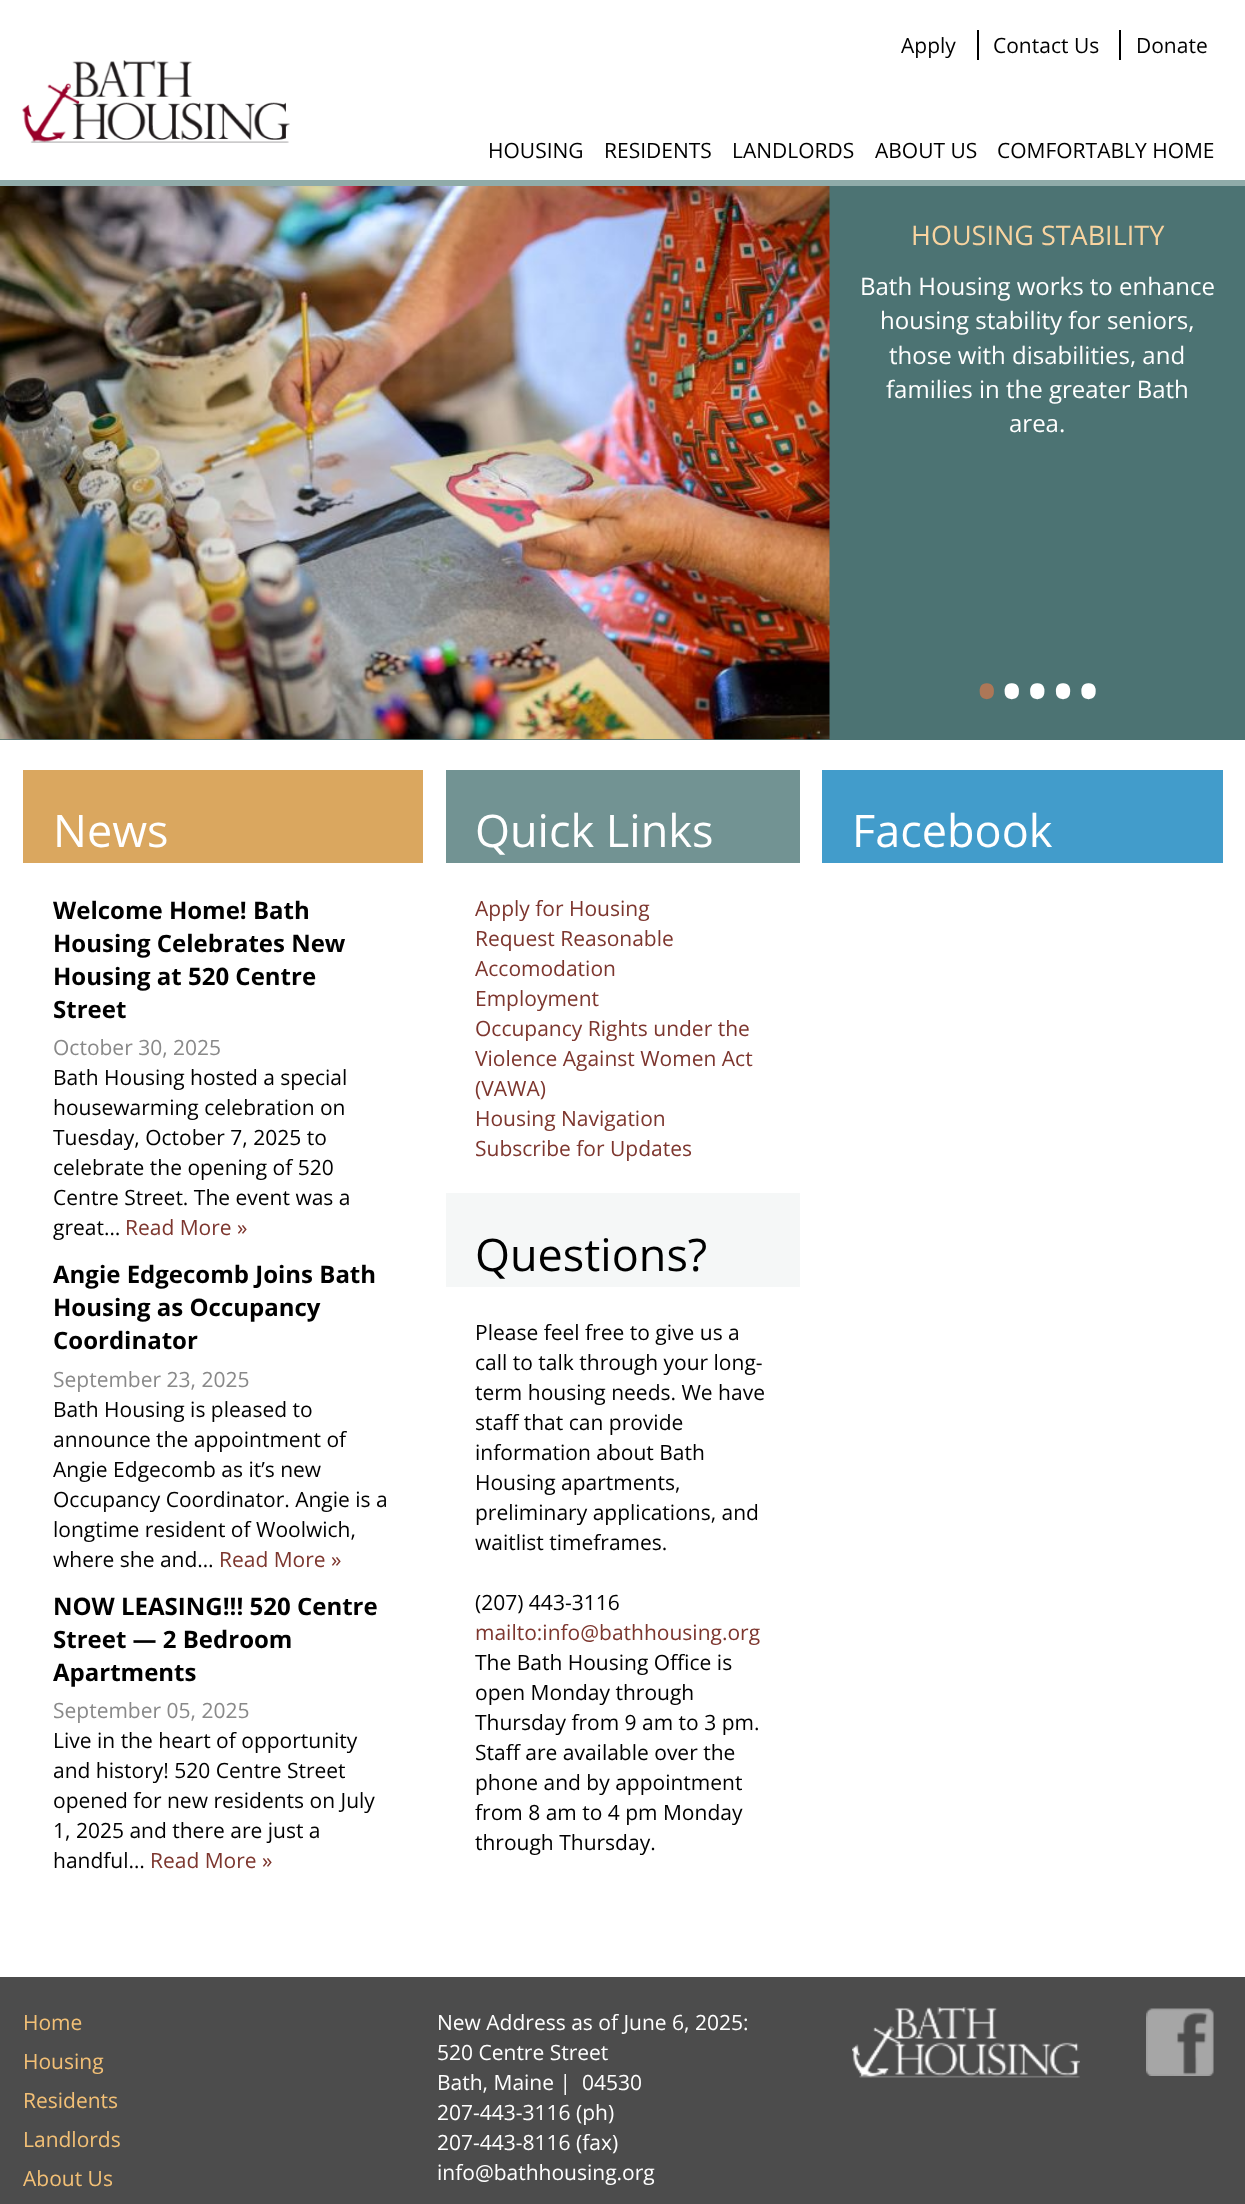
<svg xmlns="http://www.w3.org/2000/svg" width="1245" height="2204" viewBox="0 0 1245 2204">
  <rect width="100%" height="100%" fill="#fff"/>
  <path d="M0 180h1245v6H0z" fill="#90aba9"/>
  <image x="22" y="60" width="268" height="83" href="img/1.png"/>
  <path d="M977 30h2v30H977z" fill="#000"/>
  <path d="M1119 30h2v30H1119z" fill="#000"/>
  <path d="M0 186h1245v554H0z" fill="#4c7373"/>
  <image x="0" y="186" width="830" height="554" href="img/2.png"/>
  <path d="M23 770h400v93H23z" fill="#daa75f"/>
  <path d="M446 770h354v93H446z" fill="#729393"/>
  <path d="M446 1193h354v94H446z" fill="#f5f7f7"/>
  <path d="M822 770h401v93H822z" fill="#429ccb"/>
  <path d="M0 1977h1245v227H0z" fill="#4c4c4c"/>
  <image x="852" y="2007" width="228" height="71" href="img/3.png"/>
  <image x="1146" y="2008" width="68" height="68" href="img/4.png"/>
  <g font-family="Open Sans" font-size="21" fill="#000">
    <text x="901" y="53">Apply</text>
    <text x="993" y="53">Contact Us</text>
    <text x="1136" y="53">Donate</text>
    <text x="488" y="158">HOUSING</text>
    <text x="604" y="158">RESIDENTS</text>
    <text x="732" y="158">LANDLORDS</text>
    <text x="875" y="158">ABOUT US</text>
    <text x="997" y="158">COMFORTABLY HOME</text>
  </g>
  <text x="911" y="245" font-family="Open Sans" font-size="27" fill="#f9d4a0">HOUSING STABILITY</text>
  <g font-family="Open Sans" font-size="24" fill="#fff">
    <text x="860" y="295">Bath Housing works to enhance</text>
    <text x="880" y="329">housing stability for seniors,</text>
    <text x="889" y="364">those with disabilities, and</text>
    <text x="886" y="398">families in the greater Bath</text>
    <text x="1009" y="432">area.</text>
  </g>
  <text x="974" y="716" font-family="Open Sans" font-size="68" fill="#ad7757">•</text>
  <text x="999" y="716" font-family="Open Sans" font-size="68" fill="#fff">••••</text>
  <text x="53" y="847" font-family="Open Sans" font-size="45" fill="#fff">News</text>
  <g font-family="Open Sans" font-size="24" font-weight="bold" fill="#000">
    <text x="53" y="919">Welcome Home! Bath</text>
    <text x="53" y="952">Housing Celebrates New</text>
    <text x="53" y="985">Housing at 520 Centre</text>
    <text x="53" y="1018">Street</text>
  </g>
  <text x="53" y="1055" font-family="Open Sans" font-size="21" fill="#898989">October 30, 2025</text>
  <g font-family="Open Sans" font-size="21" fill="#000">
    <text x="53" y="1085">Bath Housing hosted a special</text>
    <text x="53" y="1115">housewarming celebration on</text>
    <text x="53" y="1145">Tuesday, October 7, 2025 to</text>
    <text x="53" y="1175">celebrate the opening of 520</text>
    <text x="53" y="1205">Centre Street. The event was a</text>
    <text x="53" y="1235">great…</text>
  </g>
  <text x="125" y="1235" font-family="Open Sans" font-size="21" fill="#7d362e">Read More »</text>
  <g font-family="Open Sans" font-size="24" font-weight="bold" fill="#000">
    <text x="53" y="1283">Angie Edgecomb Joins Bath</text>
    <text x="53" y="1316">Housing as Occupancy</text>
    <text x="53" y="1349">Coordinator</text>
  </g>
  <text x="53" y="1387" font-family="Open Sans" font-size="21" fill="#898989">September 23, 2025</text>
  <g font-family="Open Sans" font-size="21" fill="#000">
    <text x="53" y="1417">Bath Housing is pleased to</text>
    <text x="53" y="1447">announce the appointment of</text>
    <text x="53" y="1477">Angie Edgecomb as it’s new</text>
    <text x="53" y="1507">Occupancy Coordinator. Angie is a</text>
    <text x="53" y="1537">longtime resident of Woolwich,</text>
    <text x="53" y="1567">where she and…</text>
  </g>
  <text x="219" y="1567" font-family="Open Sans" font-size="21" fill="#7d362e">Read More »</text>
  <g font-family="Open Sans" font-size="24" font-weight="bold" fill="#000">
    <text x="53" y="1615">NOW LEASING!!! 520 Centre</text>
    <text x="53" y="1648">Street — 2 Bedroom</text>
    <text x="53" y="1681">Apartments</text>
  </g>
  <text x="53" y="1718" font-family="Open Sans" font-size="21" fill="#898989">September 05, 2025</text>
  <g font-family="Open Sans" font-size="21" fill="#000">
    <text x="53" y="1748">Live in the heart of opportunity</text>
    <text x="53" y="1778">and history! 520 Centre Street</text>
    <text x="53" y="1808">opened for new residents on July</text>
    <text x="53" y="1838">1, 2025 and there are just a</text>
    <text x="53" y="1868">handful…</text>
  </g>
  <text x="150" y="1868" font-family="Open Sans" font-size="21" fill="#7d362e">Read More »</text>
  <text x="475" y="847" font-family="Open Sans" font-size="45" fill="#fff">Quick Links</text>
  <g font-family="Open Sans" font-size="21" fill="#7d362e">
    <text x="475" y="916">Apply for Housing</text>
    <text x="475" y="946">Request Reasonable</text>
    <text x="475" y="976">Accomodation</text>
    <text x="475" y="1006">Employment</text>
    <text x="475" y="1036">Occupancy Rights under the</text>
    <text x="475" y="1066">Violence Against Women Act</text>
    <text x="475" y="1096">(VAWA)</text>
    <text x="475" y="1126">Housing Navigation</text>
    <text x="475" y="1156">Subscribe for Updates</text>
  </g>
  <text x="475" y="1271" font-family="Open Sans" font-size="45" fill="#000">Questions?</text>
  <g font-family="Open Sans" font-size="21" fill="#000">
    <text x="475" y="1340">Please feel free to give us a</text>
    <text x="475" y="1370">call to talk through your long-</text>
    <text x="475" y="1400">term housing needs. We have</text>
    <text x="475" y="1430">staff that can provide</text>
    <text x="475" y="1460">information about Bath</text>
    <text x="475" y="1490">Housing apartments,</text>
    <text x="475" y="1520">preliminary applications, and</text>
    <text x="475" y="1550">waitlist timeframes.</text>
    <text x="475" y="1610">(207) 443-3116</text>
  </g>
  <text x="475" y="1640" font-family="Open Sans" font-size="21" fill="#7d362e">mailto:info@bathhousing.org</text>
  <g font-family="Open Sans" font-size="21" fill="#000">
    <text x="475" y="1670">The Bath Housing Office is</text>
    <text x="475" y="1700">open Monday through</text>
    <text x="475" y="1730">Thursday from 9 am to 3 pm.</text>
    <text x="475" y="1760">Staff are available over the</text>
    <text x="475" y="1790">phone and by appointment</text>
    <text x="475" y="1820">from 8 am to 4 pm Monday</text>
    <text x="475" y="1850">through Thursday.</text>
  </g>
  <text x="852" y="847" font-family="Open Sans" font-size="45" fill="#fff">Facebook</text>
  <g font-family="Open Sans" font-size="21" fill="#f3c076">
    <text x="23" y="2030">Home</text>
    <text x="23" y="2069">Housing</text>
    <text x="23" y="2108">Residents</text>
    <text x="23" y="2147">Landlords</text>
    <text x="23" y="2186">About Us</text>
  </g>
  <g font-family="Open Sans" font-size="21" fill="#fff">
    <text x="437" y="2030">New Address as of June 6, 2025:</text>
    <text x="437" y="2060">520 Centre Street</text>
    <text x="437" y="2090" xml:space="preserve">Bath, Maine |  04530</text>
    <text x="437" y="2120">207-443-3116 (ph)</text>
    <text x="437" y="2150">207-443-8116 (fax)</text>
    <text x="437" y="2180">info@bathhousing.org</text>
  </g>
</svg>
